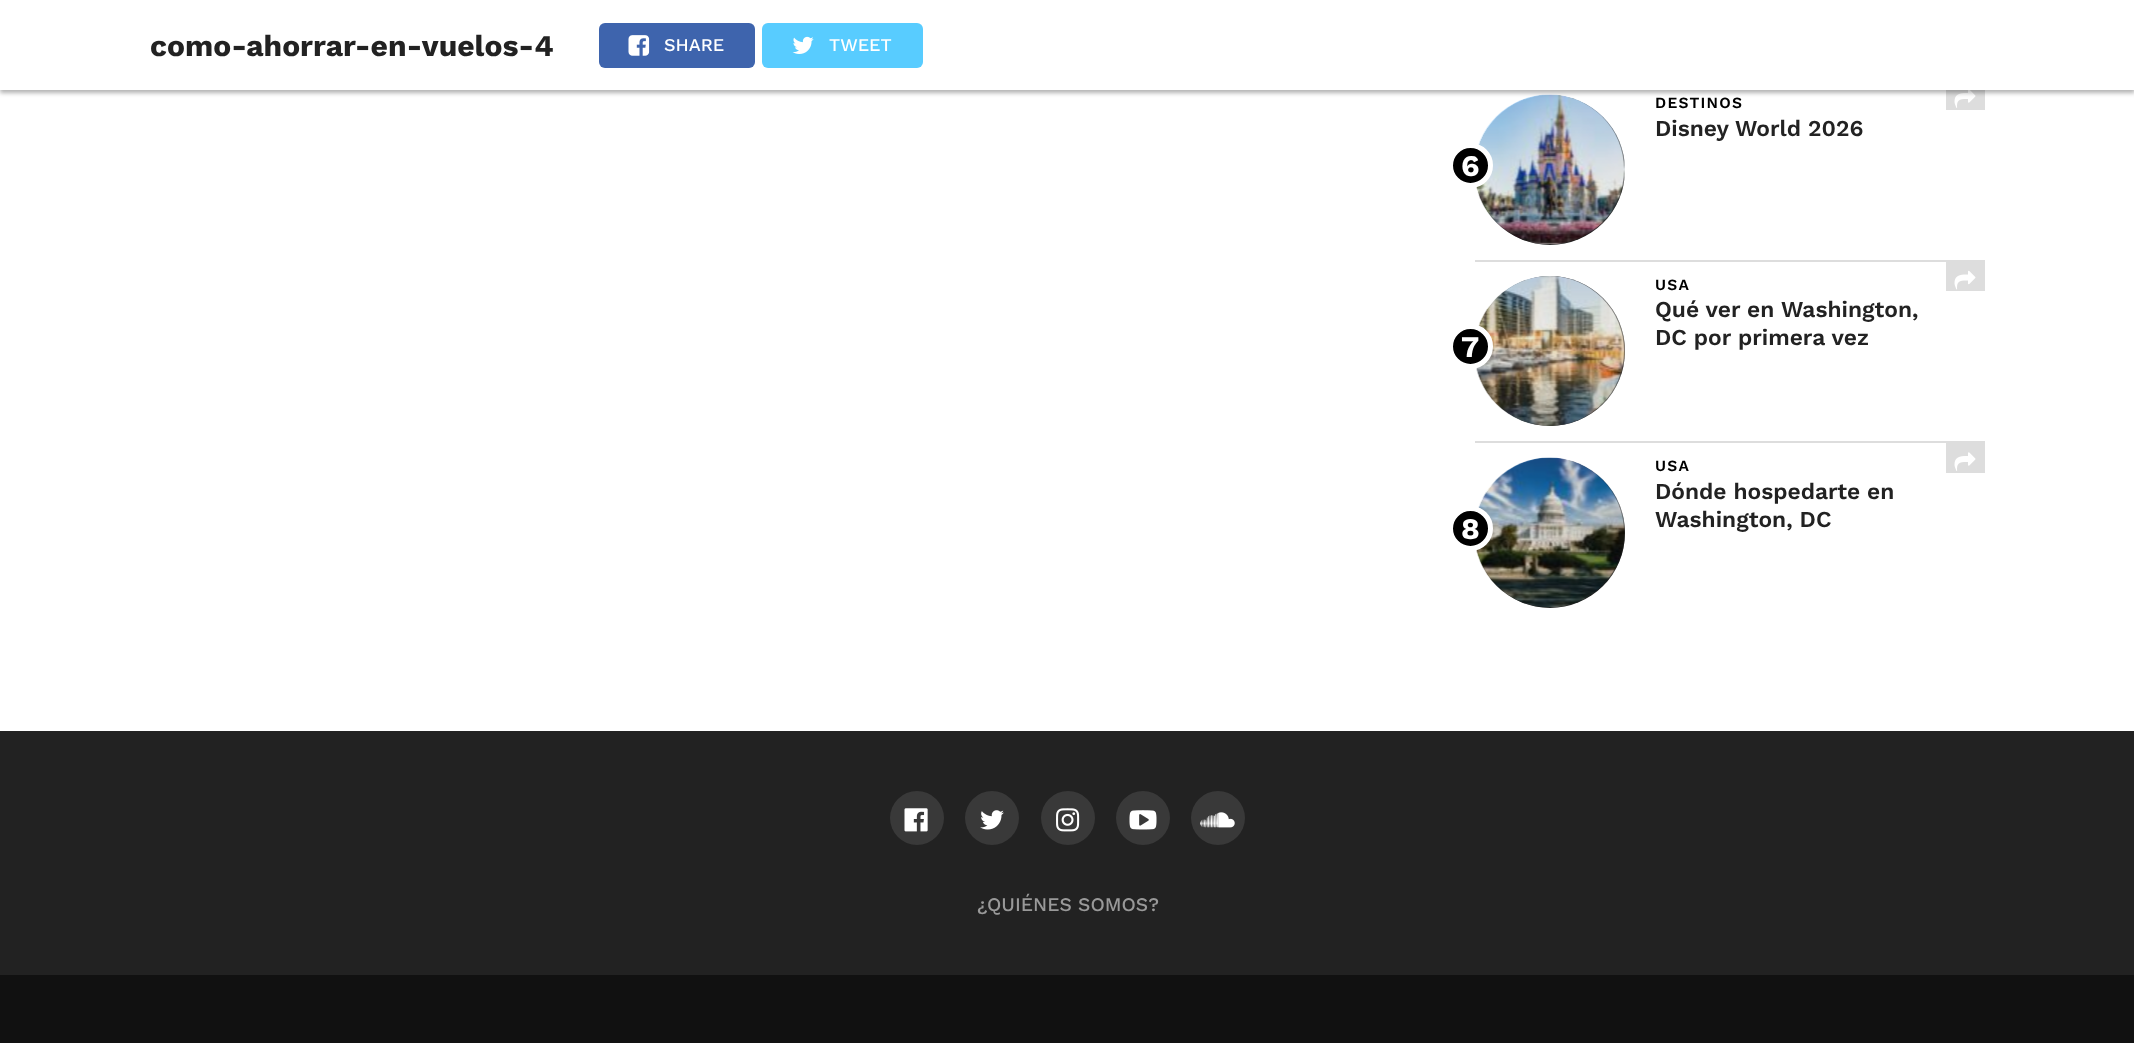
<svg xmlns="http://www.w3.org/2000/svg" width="2134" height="1043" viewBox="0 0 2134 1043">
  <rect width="100%" height="100%" fill="#fff"/>
  <path d="M1946 90h39v20H1946z" fill="#ddd"/>
  <image x="1954" y="90" width="22" height="18" href="img/3.png"/>
  <circle cx="1550" cy="170" r="75" fill="#222"/>
  <image x="1476" y="94" width="149" height="151" href="img/4.png"/>
  <path d="M0 3h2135v90H0z" fill="#0000004d" filter="blur(2px)"/>
  <path d="M0 0h2134v90H0z" fill="#fff"/>
  <rect x="599" y="23" width="156" height="45" rx="6" fill="#3e64ad"/>
  <image x="628" y="35" width="22" height="21" href="img/1.png"/>
  <rect x="762" y="23" width="161" height="45" rx="6" fill="#58ccff"/>
  <image x="792" y="36" width="22" height="18" href="img/2.png"/>
  <circle cx="1470.5" cy="165.5" r="20" fill="#000" stroke="#fff" stroke-width="5"/>
  <path d="M1475 260h510v2H1475z" fill="#ddd"/>
  <circle cx="1550" cy="351" r="75" fill="#222"/>
  <image x="1476" y="276" width="149" height="150" href="img/5.png"/>
  <circle cx="1470.5" cy="346.5" r="20" fill="#000" stroke="#fff" stroke-width="5"/>
  <path d="M1946 262h39v29H1946z" fill="#ddd"/>
  <image x="1954" y="270" width="22" height="20" href="img/6.png"/>
  <path d="M1475 441h510v2H1475z" fill="#ddd"/>
  <circle cx="1550" cy="533" r="75" fill="#222"/>
  <image x="1476" y="457" width="149" height="151" href="img/7.png"/>
  <circle cx="1470.5" cy="528.5" r="20" fill="#000" stroke="#fff" stroke-width="5"/>
  <path d="M1946 443h39v30H1946z" fill="#ddd"/>
  <image x="1954" y="452" width="22" height="19" href="img/8.png"/>
  <path d="M0 731h2134v244H0z" fill="#222"/>
  <circle cx="917" cy="818" r="27" fill="#393939"/>
  <image x="904" y="808" width="24" height="24" href="img/9.png"/>
  <circle cx="992" cy="818" r="27" fill="#393939"/>
  <image x="980" y="810" width="24" height="20" href="img/10.png"/>
  <circle cx="1068" cy="818" r="27" fill="#393939"/>
  <image x="1056" y="808" width="24" height="24" href="img/11.png"/>
  <circle cx="1143" cy="818" r="27" fill="#393939"/>
  <image x="1129" y="810" width="28" height="20" href="img/12.png"/>
  <circle cx="1218" cy="818" r="27" fill="#393939"/>
  <image x="1200" y="812" width="35" height="16" href="img/13.png"/>
  <path d="M0 975h2134v68H0z" fill="#111"/>
  <text x="150" y="56" font-family="Work Sans" font-size="30" font-weight="bold" fill="#222">como-ahorrar-en-vuelos-4</text>
  <g font-family="Work Sans" font-size="18" font-weight="500" fill="#fff">
    <text x="664" y="51">SHARE</text>
    <text x="829" y="51">TWEET</text>
  </g>
  <text x="1655" y="108" font-family="Work Sans" font-size="15.5" font-weight="600" letter-spacing="1.25" fill="#000">DESTINOS</text>
  <text x="1655" y="136" font-family="Work Sans" font-size="22.75" font-weight="600" fill="#222">Disney World 2026</text>
  <g font-family="Work Sans" font-size="30" font-weight="bold" fill="#fff">
    <text x="1461" y="176">6</text>
    <text x="1461" y="357">7</text>
  </g>
  <text x="1655" y="290" font-family="Work Sans" font-size="15.5" font-weight="600" letter-spacing="1.25" fill="#000">USA</text>
  <g font-family="Work Sans" font-size="22.75" font-weight="600" fill="#222">
    <text x="1655" y="317">Qué ver en Washington,</text>
    <text x="1655" y="345">DC por primera vez</text>
  </g>
  <text x="1461" y="539" font-family="Work Sans" font-size="30" font-weight="bold" fill="#fff">8</text>
  <text x="1655" y="471" font-family="Work Sans" font-size="15.5" font-weight="600" letter-spacing="1.25" fill="#000">USA</text>
  <g font-family="Work Sans" font-size="22.75" font-weight="600" fill="#222">
    <text x="1655" y="499">Dónde hospedarte en</text>
    <text x="1655" y="527">Washington, DC</text>
  </g>
  <text x="977" y="911" font-family="Work Sans" font-size="19.25" font-weight="500" fill="#999">¿QUIÉNES SOMOS?</text>
</svg>
